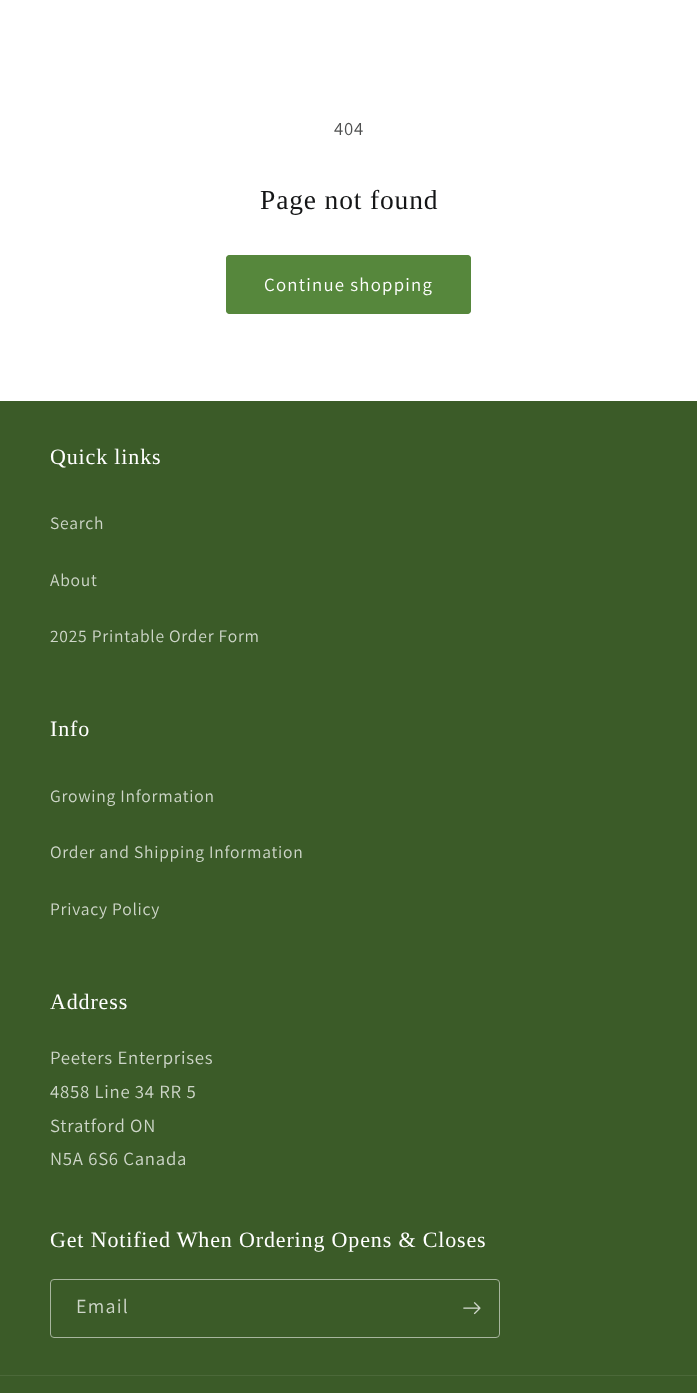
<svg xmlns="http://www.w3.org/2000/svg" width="697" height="1393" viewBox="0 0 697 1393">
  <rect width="100%" height="100%" fill="#fff"/>
  <rect x="226" y="255" width="245" height="59" rx="4" fill="#56873c"/>
  <rect x="226.5" y="255.5" width="244" height="58" rx="3.5" fill="none" stroke="#56873c"/>
  <path d="M0 401h697v992H0z" fill="#3b5b28"/>
  <rect x="50.5" y="1279.5" width="449" height="58" rx="3.5" fill="none" stroke="#a7b59e"/>
  <image x="463" y="1302" width="18" height="13" href="img/1.png"/>
  <path d="M0 1375h697v1H0z" fill="#4b6839"/>
  <text x="334" y="135" font-family="Assistant" font-size="18.75" letter-spacing="0.75" fill="#4f5050">404</text>
  <text x="260" y="209" font-family="Liberation Serif" font-size="27.5" letter-spacing="0.85" fill="#141516">Page not found</text>
  <text x="264" y="291" font-family="Assistant" font-size="18.75" letter-spacing="1.25" fill="#fff">Continue shopping</text>
  <text x="50" y="464" font-family="Liberation Serif" font-size="22" letter-spacing="0.85" fill="#fff">Quick links</text>
  <g font-family="Assistant" font-size="17.5" letter-spacing="0.75" fill="#ced6c9">
    <text x="50" y="529">Search</text>
    <text x="50" y="586">About</text>
    <text x="50" y="642">2025 Printable Order Form</text>
  </g>
  <text x="50" y="736" font-family="Liberation Serif" font-size="22" letter-spacing="0.85" fill="#fff">Info</text>
  <g font-family="Assistant" font-size="17.5" letter-spacing="0.75" fill="#ced6c9">
    <text x="50" y="802">Growing Information</text>
    <text x="50" y="858">Order and Shipping Information</text>
    <text x="50" y="915">Privacy Policy</text>
  </g>
  <text x="50" y="1009" font-family="Liberation Serif" font-size="22" letter-spacing="0.85" fill="#fff">Address</text>
  <g font-family="Assistant" font-size="18.75" letter-spacing="0.75" fill="#ced6c9">
    <text x="50" y="1064">Peeters Enterprises</text>
    <text x="50" y="1098">4858 Line 34 RR 5</text>
    <text x="50" y="1132">Stratford ON</text>
    <text x="50" y="1165">N5A 6S6 Canada</text>
  </g>
  <text x="50" y="1247" font-family="Liberation Serif" font-size="22" letter-spacing="0.85" fill="#fff">Get Notified When Ordering Opens &amp; Closes</text>
  <text x="76" y="1313" font-family="Assistant" font-size="20" letter-spacing="1.25" fill="#ced6c9">Email</text>
</svg>
